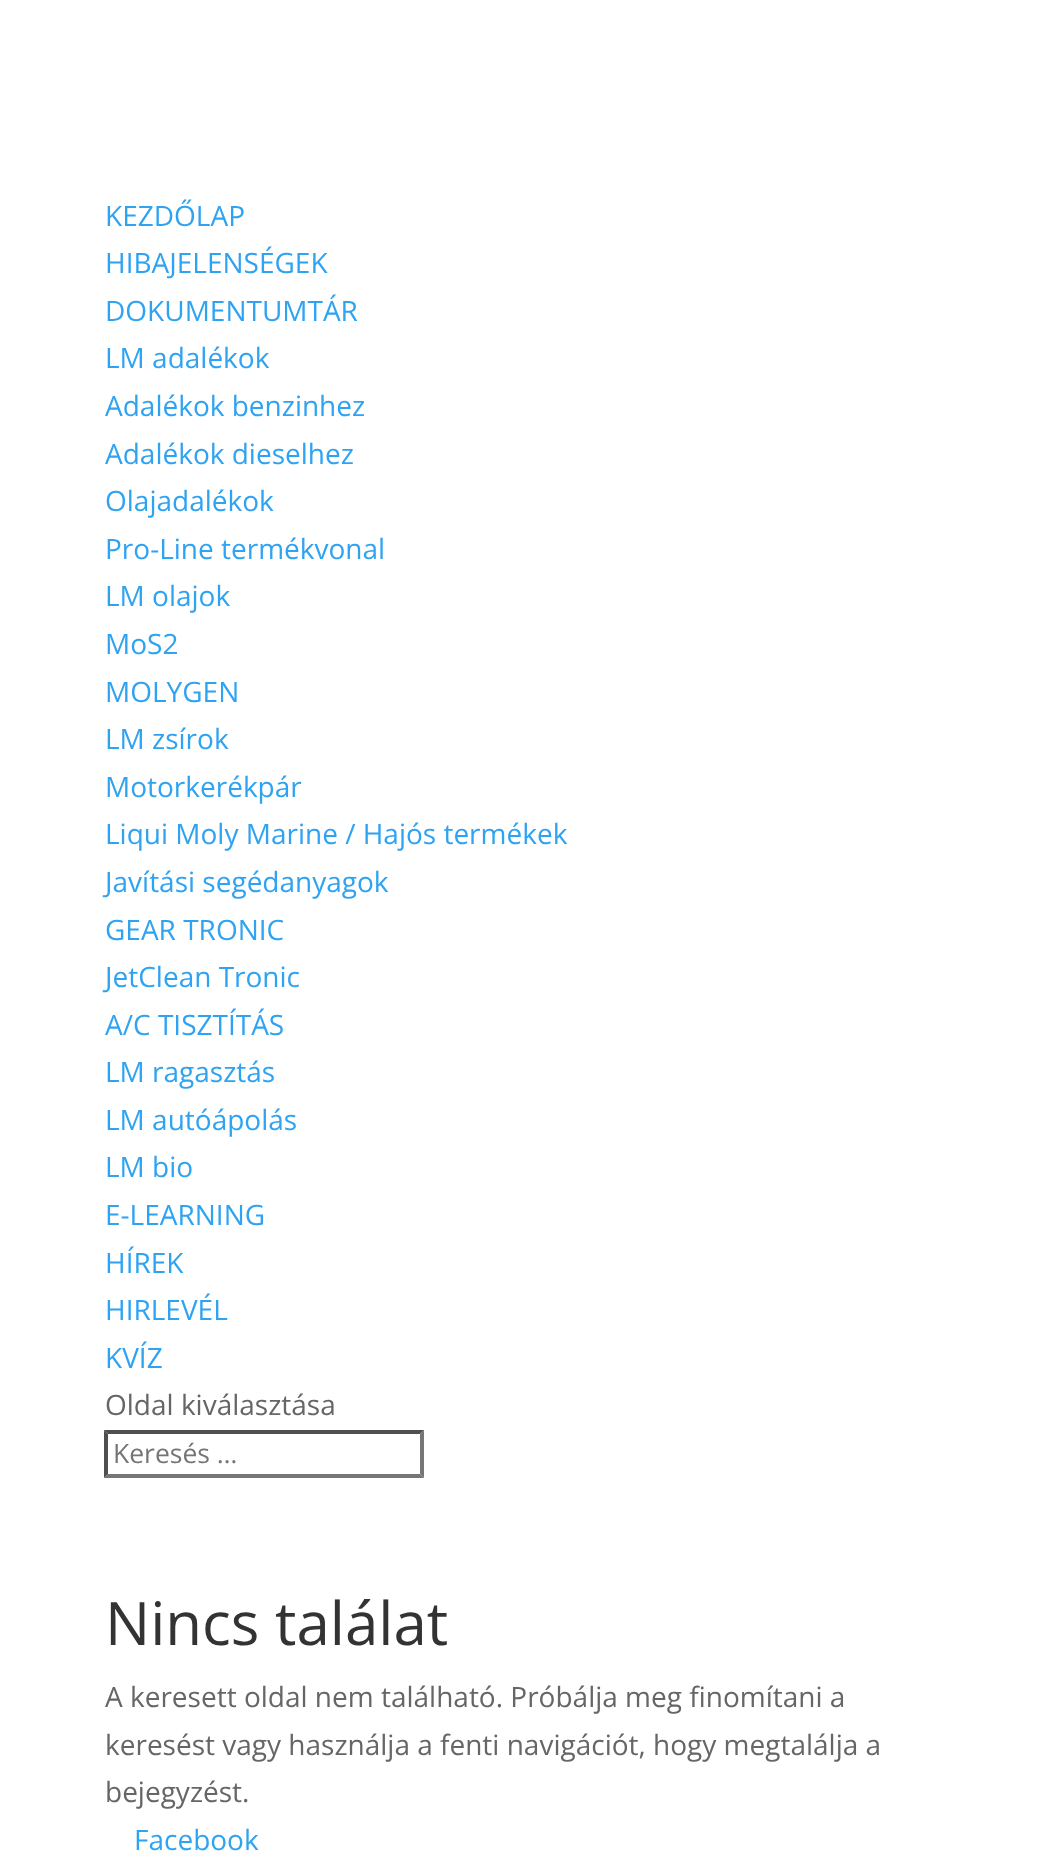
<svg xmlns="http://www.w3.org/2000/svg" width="1047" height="1874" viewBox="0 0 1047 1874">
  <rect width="100%" height="100%" fill="#fff"/>
  <path d="M104 1430H424L420 1434H108Z" fill="#4f4f4f"/>
  <path d="M424 1430V1478L420 1474V1434Z" fill="#767676"/>
  <path d="M424 1478H104L108 1474H420Z" fill="#767676"/>
  <path d="M104 1478V1430L108 1434V1474Z" fill="#4f4f4f"/>
  <g font-family="Open Sans" font-size="28" fill="#2ea3f2">
    <text x="105" y="226">KEZDŐLAP</text>
    <text x="105" y="273">HIBAJELENSÉGEK</text>
    <text x="105" y="321">DOKUMENTUMTÁR</text>
    <text x="105" y="368">LM adalékok</text>
    <text x="105" y="416">Adalékok benzinhez</text>
    <text x="105" y="464">Adalékok dieselhez</text>
    <text x="105" y="511">Olajadalékok</text>
    <text x="105" y="559">Pro-Line termékvonal</text>
    <text x="105" y="606">LM olajok</text>
    <text x="105" y="654">MoS2</text>
    <text x="105" y="702">MOLYGEN</text>
    <text x="105" y="749">LM zsírok</text>
    <text x="105" y="797">Motorkerékpár</text>
    <text x="105" y="844">Liqui Moly Marine / Hajós termékek</text>
    <text x="105" y="892">Javítási segédanyagok</text>
    <text x="105" y="940">GEAR TRONIC</text>
    <text x="105" y="987">JetClean Tronic</text>
    <text x="105" y="1035">A/C TISZTÍTÁS</text>
    <text x="105" y="1082">LM ragasztás</text>
    <text x="105" y="1130">LM autóápolás</text>
    <text x="105" y="1177">LM bio</text>
    <text x="105" y="1225">E-LEARNING</text>
    <text x="105" y="1273">HÍREK</text>
    <text x="105" y="1320">HIRLEVÉL</text>
    <text x="105" y="1368">KVÍZ</text>
  </g>
  <text x="105" y="1415" font-family="Open Sans" font-size="28" fill="#666">Oldal kiválasztása</text>
  <text x="113" y="1463" font-family="Open Sans" font-size="26.5" fill="#757575">Keresés …</text>
  <text x="105" y="1645" font-family="Open Sans" font-size="60" fill="#333">Nincs találat</text>
  <g font-family="Open Sans" font-size="28" fill="#666">
    <text x="105" y="1707">A keresett oldal nem található. Próbálja meg finomítani a</text>
    <text x="105" y="1755">keresést vagy használja a fenti navigációt, hogy megtalálja a</text>
    <text x="105" y="1802">bejegyzést.</text>
  </g>
  <text x="134" y="1850" font-family="Open Sans" font-size="28" fill="#2ea3f2">Facebook</text>
</svg>
